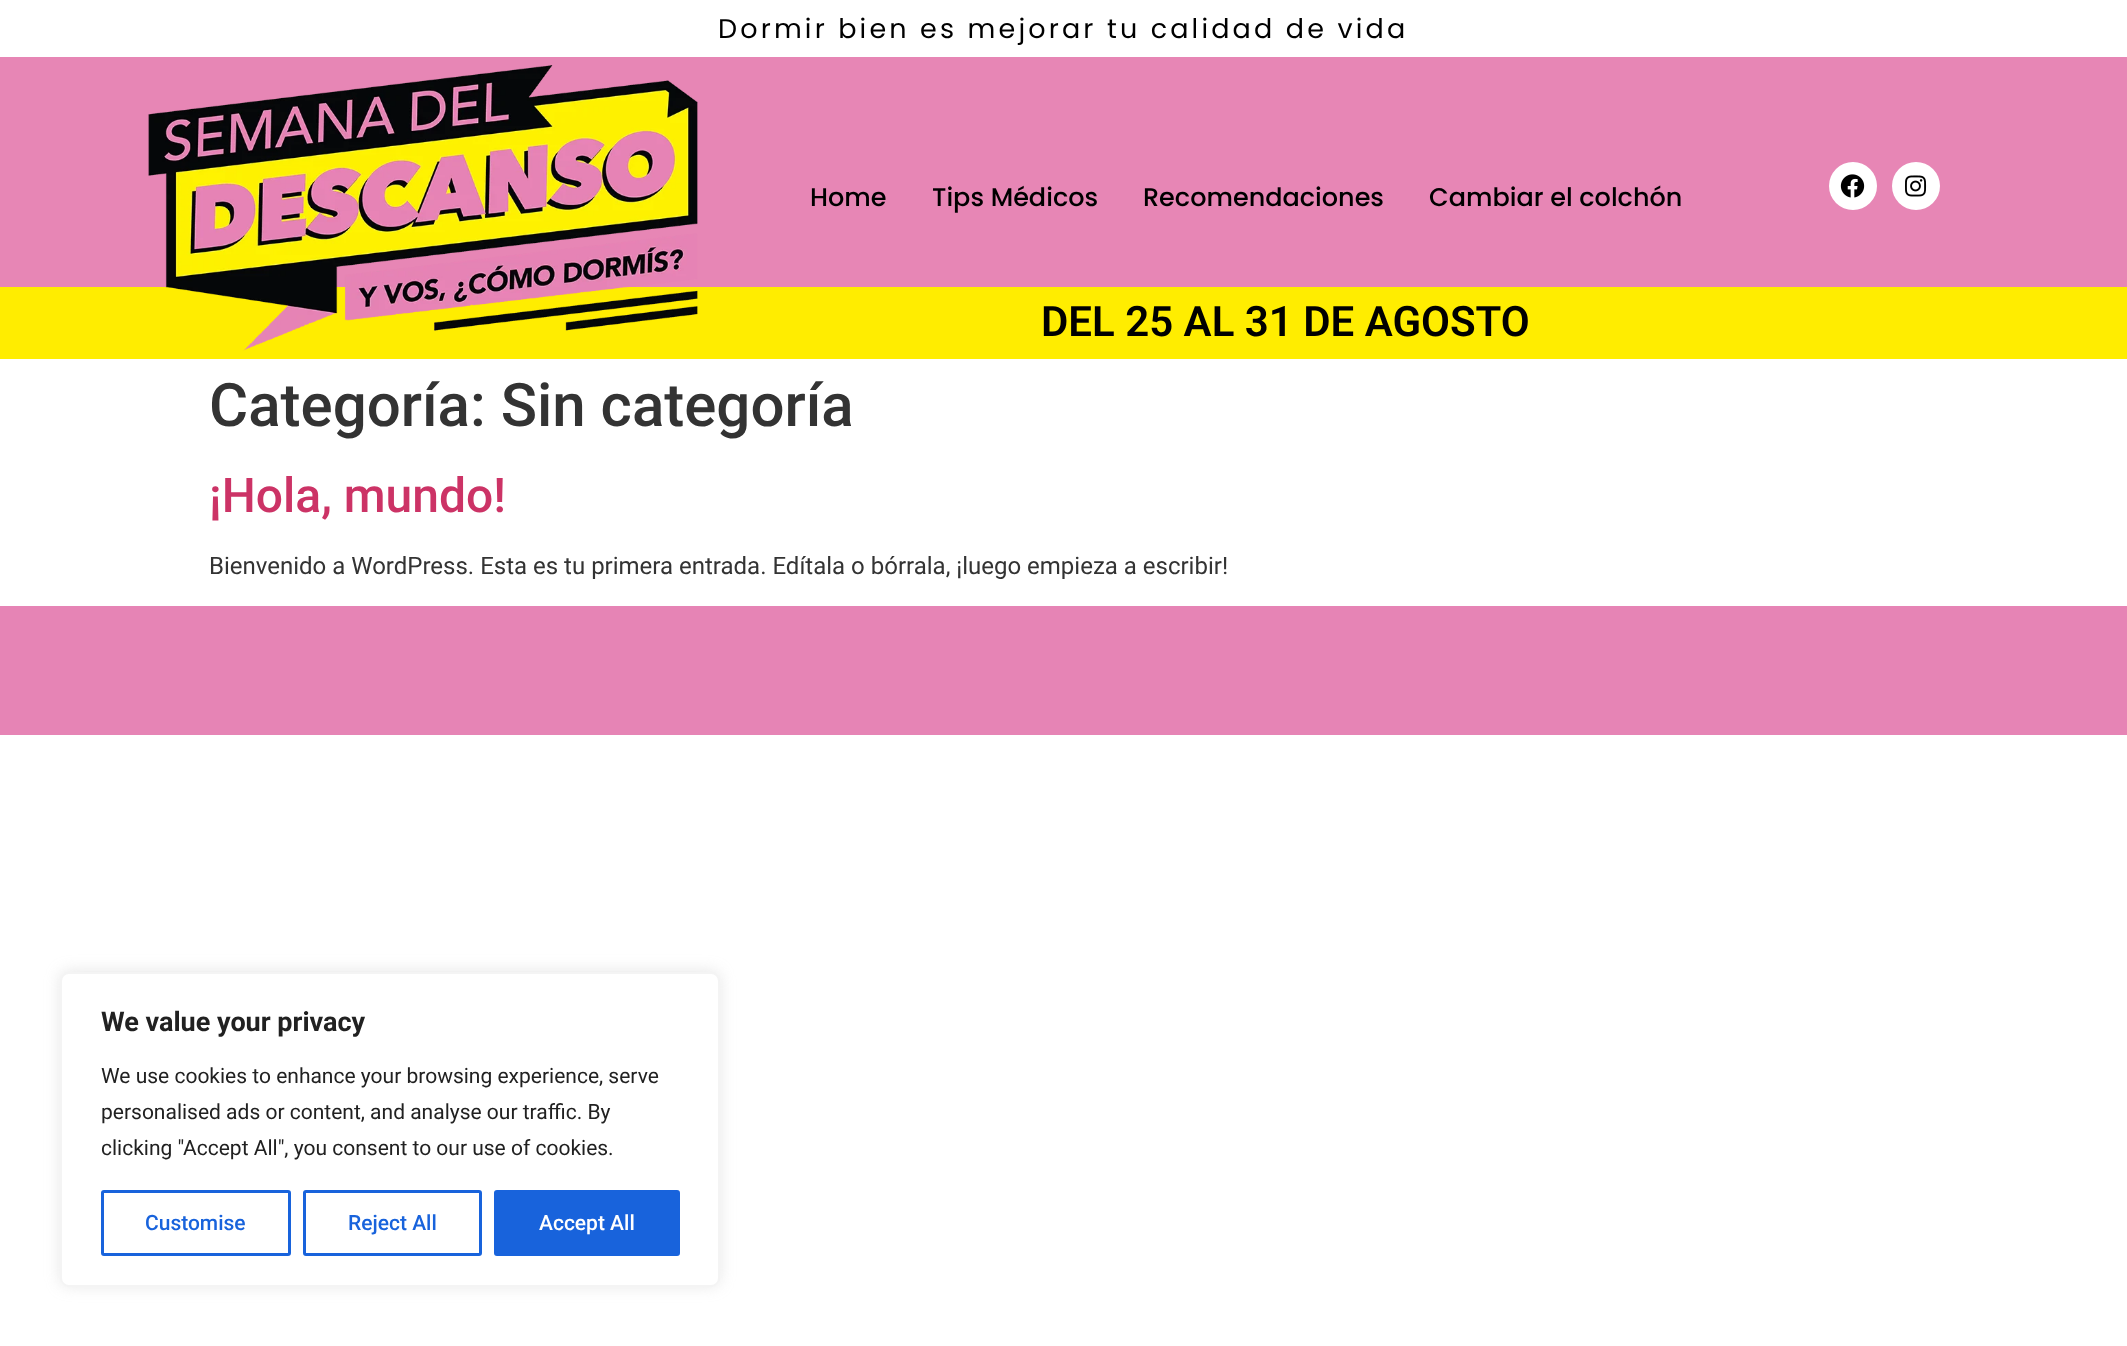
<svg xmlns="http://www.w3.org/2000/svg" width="2127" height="1346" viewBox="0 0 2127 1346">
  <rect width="100%" height="100%" fill="#fff"/>
  <path d="M0 57h2127v230H0z" fill="#e786b5"/>
  <path d="M0 287h2127v72H0z" fill="#ffed00"/>
  <image x="148" y="65" width="550" height="286" href="img/1.png"/>
  <circle cx="1853" cy="186" r="24" fill="#fff"/>
  <image x="1840" y="174" width="25" height="24" href="img/2.png"/>
  <circle cx="1916" cy="186" r="24" fill="#fff"/>
  <image x="1905" y="175" width="22" height="22" href="img/3.png"/>
  <path d="M0 606h2127v129H0z" fill="#e684b5"/>
  <rect x="60" y="971" width="660" height="315" rx="9" fill="#acabab4d" filter="blur(7.5px)"/>
  <rect x="61" y="973" width="658" height="313" rx="8" fill="#fff" stroke="#f4f4f4" stroke-width="2"/>
  <rect x="102.5" y="1191.5" width="187" height="63" rx="1.5" fill="none" stroke="#1863dc" stroke-width="3"/>
  <rect x="304.5" y="1191.5" width="176" height="63" rx="1.5" fill="none" stroke="#1863dc" stroke-width="3"/>
  <rect x="495.5" y="1191.5" width="183" height="63" rx="1.5" fill="#1863dc" stroke="#1863dc" stroke-width="3"/>
  <text x="718" y="38" font-family="Poppins" font-size="27" letter-spacing="3.15" fill="#000">Dormir bien es mejorar tu calidad de vida</text>
  <g font-family="Poppins" font-size="25.5" font-weight="500" fill="#000">
    <text x="810" y="206">Home</text>
    <text x="932" y="206">Tips Médicos</text>
    <text x="1143" y="206">Recomendaciones</text>
    <text x="1429" y="206">Cambiar el colchón</text>
  </g>
  <text x="1041" y="336" font-family="Roboto" font-size="42" font-weight="600" fill="#000">DEL 25 AL 31 DE AGOSTO</text>
  <text x="209" y="426" font-family="Roboto" font-size="60" font-weight="500" fill="#333">Categoría: Sin categoría</text>
  <text x="209" y="512" font-family="Roboto" font-size="48" font-weight="500" fill="#c36">¡Hola, mundo!</text>
  <text x="209" y="574" font-family="Roboto" font-size="24" fill="#333">Bienvenido a WordPress. Esta es tu primera entrada. Edítala o bórrala, ¡luego empieza a escribir!</text>
  <text x="101" y="1031" font-family="Roboto" font-size="27" font-weight="bold" fill="#212121">We value your privacy</text>
  <g font-family="Roboto" font-size="21" fill="#212121">
    <text x="101" y="1083">We use cookies to enhance your browsing experience, serve</text>
    <text x="101" y="1119">personalised ads or content, and analyse our traffic. By</text>
    <text x="101" y="1155">clicking "Accept All", you consent to our use of cookies.</text>
  </g>
  <g font-family="Roboto" font-size="21" font-weight="500" fill="#1863dc">
    <text x="145" y="1230">Customise</text>
    <text x="348" y="1230">Reject All</text>
  </g>
  <text x="539" y="1230" font-family="Roboto" font-size="21" font-weight="500" fill="#fff">Accept All</text>
</svg>
